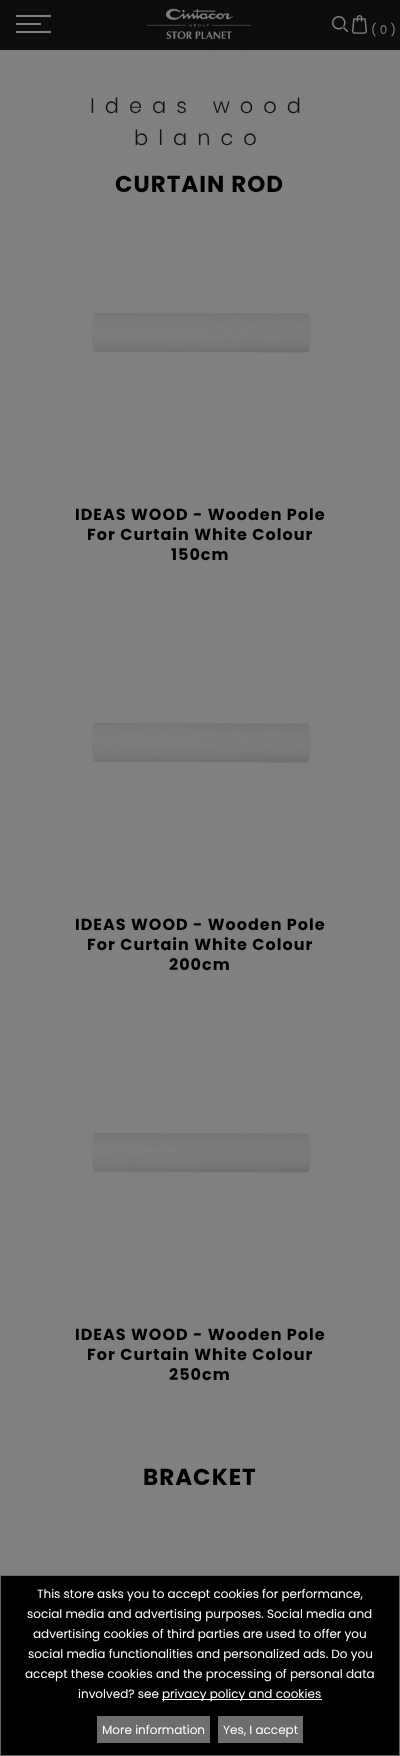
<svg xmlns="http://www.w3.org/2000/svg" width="400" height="1756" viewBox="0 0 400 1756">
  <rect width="100%" height="100%" fill="#808080"/>
  <path d="M0 0h400v50H0z" fill="#0d0d0d"/>
  <path d="M16 15h35v2H16z" fill="#808080"/>
  <path d="M16 23h25v2H16z" fill="#808080"/>
  <path d="M16 31h35v2H16z" fill="#808080"/>
  <image x="147" y="8" width="105" height="42" href="img/1.png"/>
  <image x="332" y="16" width="16" height="16" href="img/2.png"/>
  <image x="352" y="15" width="15" height="19" href="img/3.png"/>
  <image x="92" y="312" width="219" height="41" href="img/4.png"/>
  <image x="92" y="722" width="219" height="41" href="img/4.png"/>
  <image x="92" y="1132" width="219" height="41" href="img/4.png"/>
  <path d="M0.5 1575.5h399v180H0.5z" fill="none" stroke="#666"/>
  <path d="M1 1576h398v179H1z" fill="#000"/>
  <path d="M162 1699h160v1H162z" fill="#fff"/>
  <path d="M97 1716h113v27H97z" fill="#6d6d6d"/>
  <path d="M218 1716h85v27H218z" fill="#6d6d6d"/>
  <text x="371" y="34" font-family="Poppins" font-size="12" fill="#808080">( 0 )</text>
  <g font-family="Poppins" font-size="21" font-weight="300" letter-spacing="10" fill="#121212">
    <text x="90" y="113">Ideas wood</text>
    <text x="134" y="145">blanco</text>
  </g>
  <text x="115" y="192" font-family="Poppins" font-size="23" font-weight="bold" letter-spacing="1" fill="#000">CURTAIN ROD</text>
  <g font-family="Poppins" font-size="16" font-weight="bold" letter-spacing="1" fill="#000">
    <text x="75" y="520">IDEAS WOOD - Wooden Pole</text>
    <text x="87" y="540">For Curtain White Colour</text>
    <text x="171" y="560">150cm</text>
    <text x="75" y="930">IDEAS WOOD - Wooden Pole</text>
    <text x="87" y="950">For Curtain White Colour</text>
    <text x="169" y="970">200cm</text>
    <text x="75" y="1340">IDEAS WOOD - Wooden Pole</text>
    <text x="87" y="1360">For Curtain White Colour</text>
    <text x="169" y="1380">250cm</text>
  </g>
  <text x="143" y="1485" font-family="Poppins" font-size="23" font-weight="bold" letter-spacing="1" fill="#000">BRACKET</text>
  <g font-family="Poppins" font-size="12" fill="#fff">
    <text x="37" y="1598">This store asks you to accept cookies for performance,</text>
    <text x="27" y="1618">social media and advertising purposes. Social media and</text>
    <text x="33" y="1638">advertising cookies of third parties are used to offer you</text>
    <text x="28" y="1658">social media functionalities and personalized ads. Do you</text>
    <text x="25" y="1678">accept these cookies and the processing of personal data</text>
    <text x="78" y="1698">involved? see</text>
    <text x="162" y="1698">privacy policy and cookies</text>
    <text x="102" y="1734">More information</text>
    <text x="223" y="1734">Yes, I accept</text>
  </g>
</svg>
